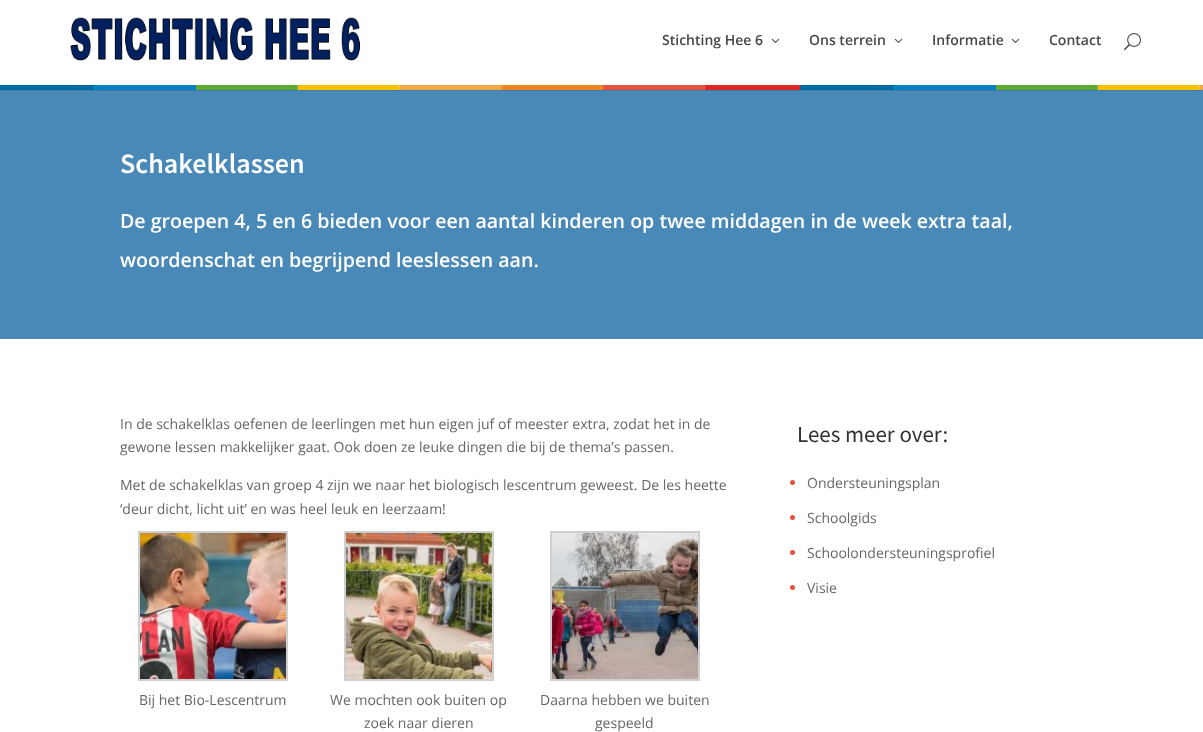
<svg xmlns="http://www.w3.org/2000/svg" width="1203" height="732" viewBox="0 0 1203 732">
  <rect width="100%" height="100%" fill="#fff"/>
  <path d="M0 90h1203v1H0z" fill="#427ba6"/>
  <image x="0" y="85" width="1203" height="5" href="img/1.png"/>
  <image x="70" y="17" width="291" height="44" href="img/2.png"/>
  <image x="771" y="38" width="9" height="5" href="img/3.png"/>
  <image x="894" y="38" width="9" height="5" href="img/3.png"/>
  <image x="1011" y="38" width="9" height="5" href="img/3.png"/>
  <image x="1124" y="33" width="17" height="18" href="img/4.png"/>
  <path d="M0 91h1203v248H0z" fill="#4989b8"/>
  <path d="M139 532h148v148H139z" fill="none" stroke="#cfcfcf" stroke-width="2"/>
  <image x="140" y="533" width="146" height="146" href="img/5.png"/>
  <path d="M345 532h148v148H345z" fill="none" stroke="#cfcfcf" stroke-width="2"/>
  <image x="346" y="533" width="146" height="146" href="img/6.png"/>
  <path d="M551 532h148v148H551z" fill="none" stroke="#cfcfcf" stroke-width="2"/>
  <image x="552" y="533" width="146" height="146" href="img/7.png"/>
  <circle cx="792.5" cy="482.5" r="2.5" fill="#e4513f"/>
  <circle cx="792.5" cy="517.5" r="2.5" fill="#e4513f"/>
  <circle cx="792.5" cy="552.5" r="2.5" fill="#e4513f"/>
  <circle cx="792.5" cy="587.5" r="2.5" fill="#e4513f"/>
  <g font-family="Open Sans" font-size="14" font-weight="600" fill="#474747">
    <text x="662" y="45">Stichting Hee 6</text>
    <text x="809" y="45">Ons terrein</text>
    <text x="932" y="45">Informatie</text>
    <text x="1049" y="45">Contact</text>
  </g>
  <text x="120" y="173" font-family="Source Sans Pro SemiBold" font-size="28" font-weight="600" fill="#fff">Schakelklassen</text>
  <g font-family="Open Sans" font-size="19.6" font-weight="600" fill="#fff">
    <text x="120" y="228">De groepen 4, 5 en 6 bieden voor een aantal kinderen op twee middagen in de week extra taal,</text>
    <text x="120" y="267">woordenschat en begrijpend leeslessen aan.</text>
  </g>
  <g font-family="Open Sans" font-size="14" fill="#666">
    <text x="120" y="429">In de schakelklas oefenen de leerlingen met hun eigen juf of meester extra, zodat het in de</text>
    <text x="120" y="452">gewone lessen makkelijker gaat. Ook doen ze leuke dingen die bij de thema’s passen.</text>
    <text x="120" y="490">Met de schakelklas van groep 4 zijn we naar het biologisch lescentrum geweest. De les heette</text>
    <text x="120" y="514">‘deur dicht, licht uit’ en was heel leuk en leerzaam!</text>
    <text x="139" y="705">Bij het Bio-Lescentrum</text>
    <text x="330" y="705">We mochten ook buiten op</text>
    <text x="364" y="728">zoek naar dieren</text>
    <text x="540" y="705">Daarna hebben we buiten</text>
    <text x="595" y="728">gespeeld</text>
  </g>
  <text x="797" y="442" font-family="Source Sans Pro" font-size="23" fill="#333">Lees meer over:</text>
  <g font-family="Open Sans" font-size="14" fill="#666">
    <text x="807" y="488">Ondersteuningsplan</text>
    <text x="807" y="523">Schoolgids</text>
    <text x="807" y="558">Schoolondersteuningsprofiel</text>
    <text x="807" y="593">Visie</text>
  </g>
</svg>
